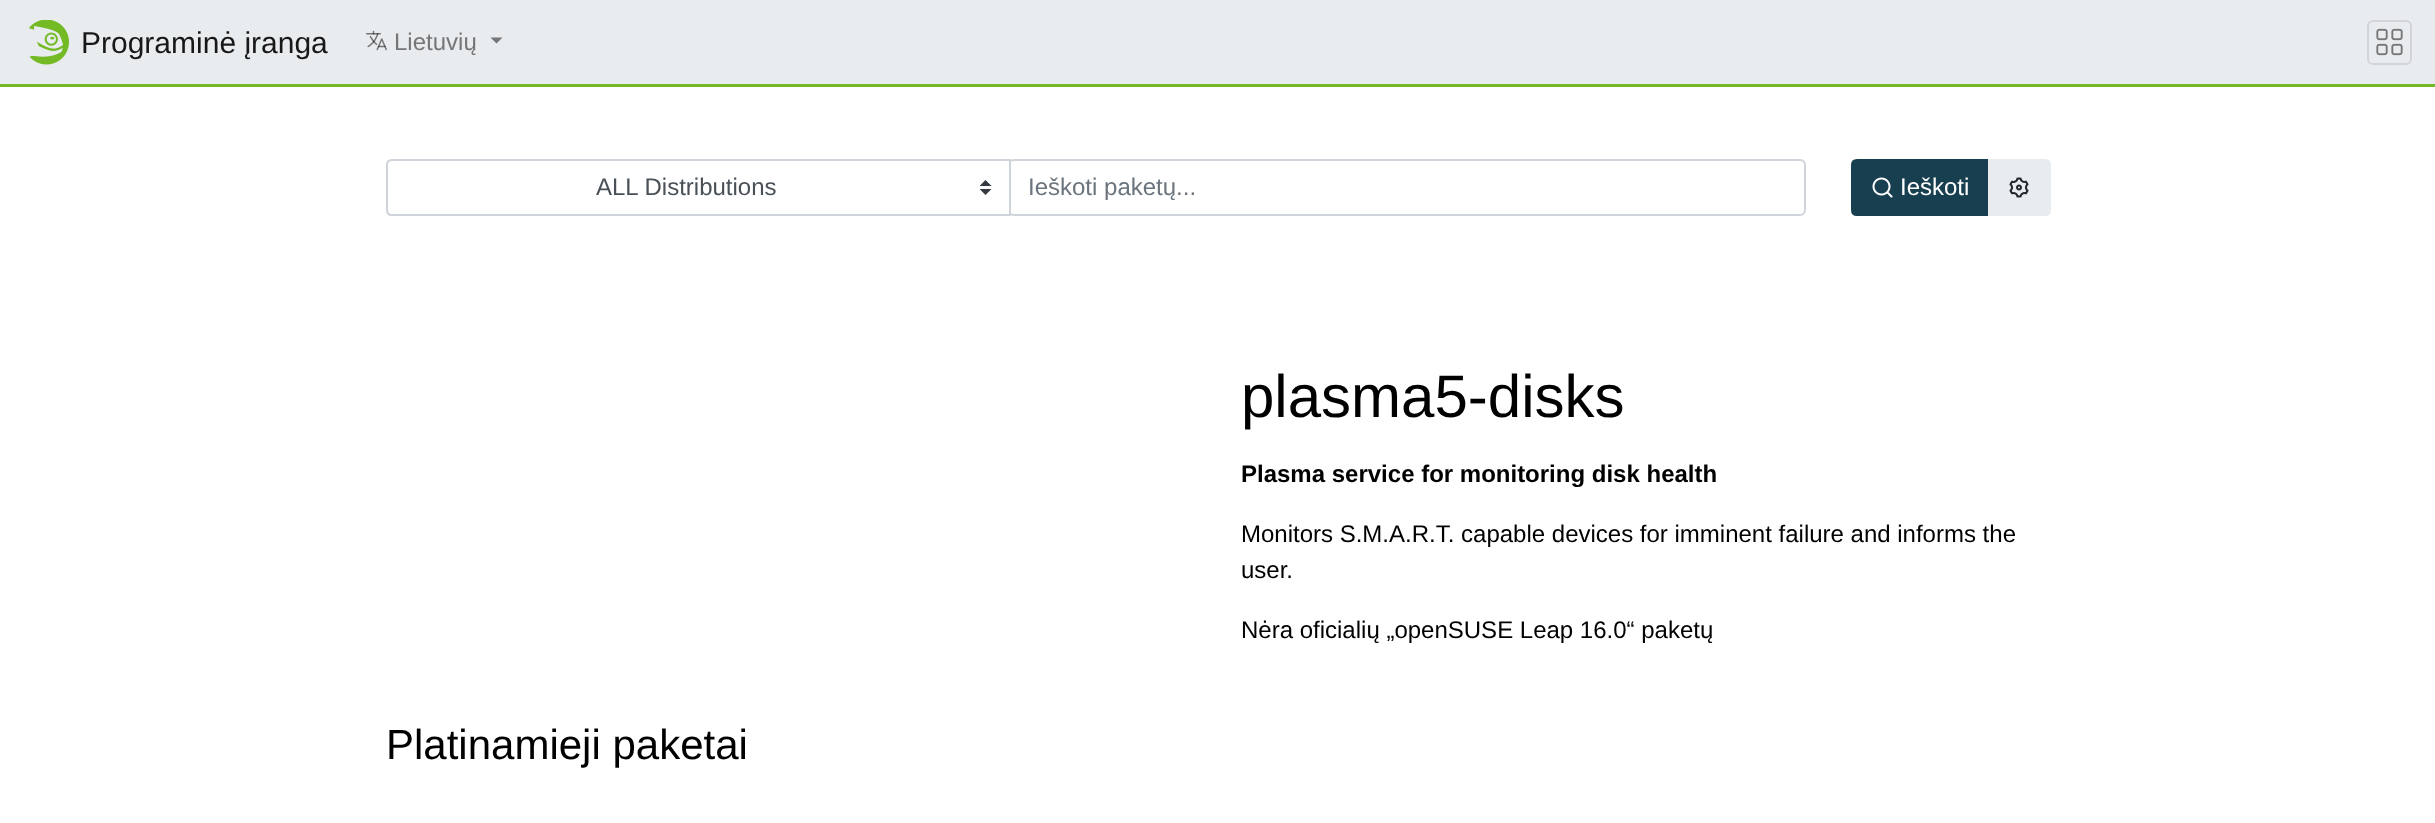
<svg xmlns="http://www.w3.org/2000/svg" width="2435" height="823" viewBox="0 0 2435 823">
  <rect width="100%" height="100%" fill="#fff"/>
  <path d="M0 0h2435v84H0z" fill="#e9ecef"/>
  <path d="M0 84h2435v3H0z" fill="#73ba25"/>
  <image x="28" y="20" width="41" height="45" href="img/1.png"/>
  <image x="366" y="30" width="21" height="21" href="img/2.png"/>
  <path d="M490.5 37.5H502.5L496.5 43.5Z" fill="#757678"/>
  <rect x="2368" y="21" width="43" height="43" rx="5" fill="none" stroke="#d2d4d7" stroke-width="2"/>
  <image x="2376" y="28" width="27" height="28" href="img/3.png"/>
  <rect x="1009" y="160" width="796" height="55" rx="5" fill="none" stroke="#ced4da" stroke-width="2"/>
  <path d="M392 159H1011V216H392C388.5 216 386 213.5 386 210V165C386 161.5 388.5 159 392 159Z" fill="#fff"/>
  <image x="980" y="180" width="12" height="15" href="img/4.png"/>
  <path d="M392 160H1010V215H392C389 215 387 213 387 210V165C387 162 389 160 392 160Z" fill="none" stroke="#ced4da" stroke-width="2"/>
  <path d="M1857 160H1988V215H1857C1854 215 1852 213 1852 210V165C1852 162 1854 160 1857 160Z" fill="#173f4f" stroke="#173f4f" stroke-width="2"/>
  <image x="1872" y="177" width="21" height="21" href="img/5.png"/>
  <path d="M1989 160H2045C2048 160 2050 162 2050 165V210C2050 213 2048 215 2045 215H1989Z" fill="#e9ecef" stroke="#e9ecef" stroke-width="2"/>
  <image x="2009" y="177" width="20" height="21" href="img/6.png"/>
  <text x="81" y="53" font-family="Liberation Sans" font-size="30" fill="#171818">Programinė įranga</text>
  <text x="394" y="50" font-family="Liberation Sans" font-size="24" fill="#757678">Lietuvių</text>
  <text x="596" y="195" font-family="Liberation Sans" font-size="24" fill="#495057">ALL Distributions</text>
  <text x="1028" y="195" font-family="Liberation Sans" font-size="24" fill="#6c757d">Ieškoti paketų...</text>
  <text x="1900" y="195" font-family="Liberation Sans" font-size="24" fill="#fff">Ieškoti</text>
  <text x="1241" y="417" font-family="Liberation Sans" font-size="60" fill="#000">plasma5-disks</text>
  <text x="1241" y="482" font-family="Liberation Sans" font-size="24" font-weight="bold" fill="#000">Plasma service for monitoring disk health</text>
  <g font-family="Liberation Sans" font-size="24" fill="#000">
    <text x="1241" y="542">Monitors S.M.A.R.T. capable devices for imminent failure and informs the</text>
    <text x="1241" y="578">user.</text>
    <text x="1241" y="638">Nėra oficialių „openSUSE Leap 16.0“ paketų</text>
  </g>
  <text x="386" y="759" font-family="Liberation Sans" font-size="42" fill="#000">Platinamieji paketai</text>
</svg>
